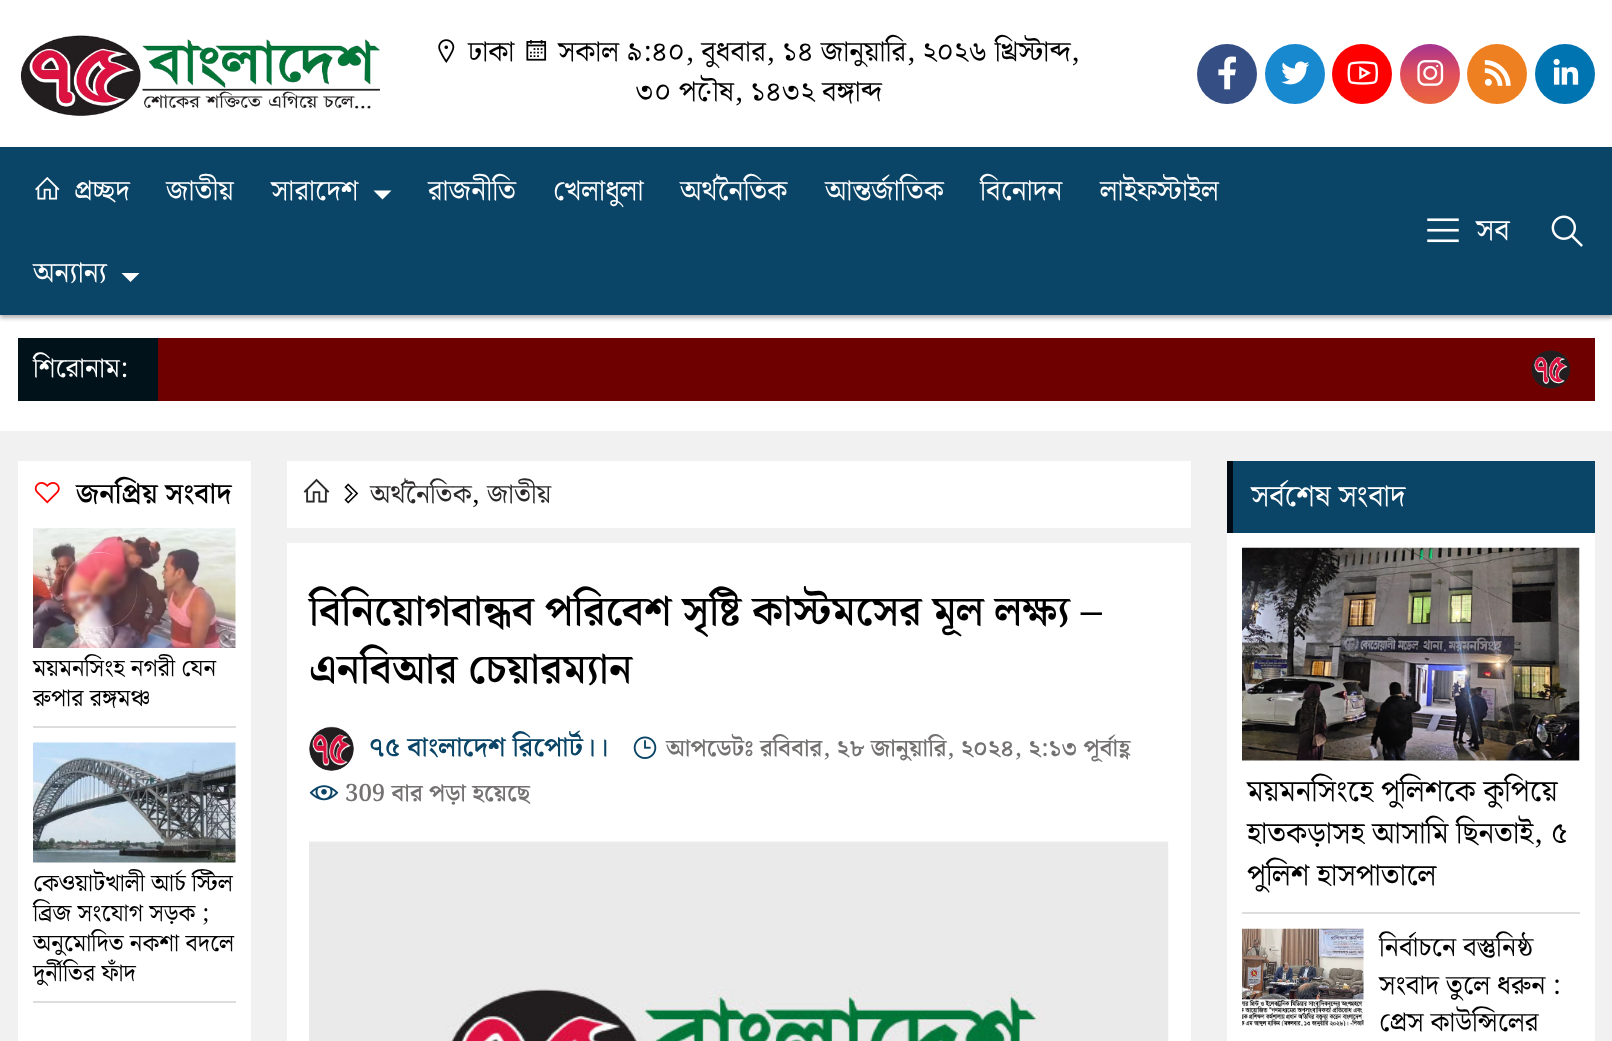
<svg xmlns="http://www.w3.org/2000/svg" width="1612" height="1041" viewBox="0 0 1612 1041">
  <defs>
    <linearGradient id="g1" gradientUnits="userSpaceOnUse" x1="1430" y1="43" x2="1430" y2="104"><stop offset="0" stop-color="#a33392"/><stop offset="0.5" stop-color="#e04e5c"/><stop offset="1" stop-color="#e9663c"/></linearGradient>
    <clipPath id="clip1"><path d="M1242 548h338v364H1242z"/></clipPath>
  </defs>
  <rect width="100%" height="100%" fill="#fff"/>
  <image x="20" y="35" width="360" height="82" href="img/1.png"/>
  <image x="438" y="39" width="17" height="24" href="img/2.png"/>
  <image x="526" y="40" width="21" height="21" href="img/3.png"/>
  <circle cx="1227" cy="74" r="30" fill="#354e83"/>
  <image x="1218" y="56" width="18" height="34" href="img/4.png"/>
  <circle cx="1295" cy="74" r="30" fill="#1889cf"/>
  <image x="1281" y="61" width="29" height="24" href="img/5.png"/>
  <circle cx="1362" cy="74" r="30" fill="#f00"/>
  <image x="1347" y="61" width="31" height="24" href="img/6.png"/>
  <circle cx="1430" cy="74" r="30" fill="url(#g1)"/>
  <image x="1417" y="60" width="27" height="26" href="img/7.png"/>
  <circle cx="1497" cy="74" r="30" fill="#ef8021"/>
  <image x="1484" y="60" width="27" height="26" href="img/8.png"/>
  <circle cx="1565" cy="74" r="30" fill="#0073b1"/>
  <image x="1553" y="58" width="26" height="27" href="img/9.png"/>
  <path d="M0 150h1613v168H0z" fill="#0000004d" filter="blur(2px)"/>
  <path d="M0 147h1612v168H0z" fill="#0a4466"/>
  <image x="35" y="177" width="25" height="23" href="img/10.png"/>
  <path d="M373.5 190.5H391.5L382.5 199.5Z" fill="#fff"/>
  <path d="M121.5 273H139.5L130.5 282Z" fill="#fff"/>
  <image x="1427" y="218" width="32" height="25" href="img/11.png"/>
  <image x="1551" y="215" width="32" height="32" href="img/12.png"/>
  <path d="M158 338h1437v63H158z" fill="#6f0000"/>
  <path d="M18 338h140v63H18z" fill="#01121b"/>
  <image x="1531" y="350" width="40" height="39" href="img/13.png"/>
  <path d="M0 431h1612v610H0z" fill="#f1f1f2"/>
  <path d="M18 461h233v580H18z" fill="#fff"/>
  <image x="34" y="482" width="26" height="22" href="img/14.png"/>
  <path d="M33 726h203v2H33z" fill="#ddd"/>
  <image x="33" y="528" width="203" height="120" href="img/15.png"/>
  <path d="M33 1001h203v2H33z" fill="#ddd"/>
  <image x="33" y="742" width="203" height="121" href="img/16.png"/>
  <path d="M287 461h904v67H287z" fill="#fff"/>
  <image x="303" y="478" width="27" height="25" href="img/17.png"/>
  <image x="344" y="483" width="15" height="21" href="img/18.png"/>
  <path d="M287 543h904v498H287z" fill="#fff"/>
  <image x="309" y="726" width="45" height="45" href="img/19.png"/>
  <image x="633" y="736" width="24" height="23" href="img/20.png"/>
  <image x="309" y="785" width="30" height="16" href="img/21.png"/>
  <image x="309" y="841" width="860" height="200" href="img/22.png"/>
  <path d="M1233 461h362v72H1233z" fill="#0a4466"/>
  <path d="M1227 461h6v72H1227z" fill="#000a15"/>
  <path d="M1227 533h368v508H1227z" fill="#fff"/>
  <path d="M1242 912h338v2H1242z" fill="#ddd"/>
  <image x="1242" y="547" width="338" height="214" href="img/23.png"/>
  <image x="1242" y="928" width="122" height="98" href="img/24.png"/>
  <g font-family="Noto Serif Bengali" font-size="28.5" fill="#000">
    <text x="468" y="61">ঢাকা</text>
    <text x="558" y="61">সকাল ৯:৪০, বুধবার, ১৪ জানুয়ারি, ২০২৬ খ্রিস্টাব্দ,</text>
    <text x="635" y="101">৩০ পৌষ, ১৪৩২ বঙ্গাব্দ</text>
  </g>
  <g font-family="Noto Serif Bengali" font-size="28.5" fill="#fff">
    <text x="74" y="200">প্রচ্ছদ</text>
    <text x="166" y="200">জাতীয়</text>
    <text x="271" y="200">সারাদেশ</text>
    <text x="428" y="200">রাজনীতি</text>
    <text x="553" y="200">খেলাধুলা</text>
    <text x="680" y="200">অর্থনৈতিক</text>
    <text x="825" y="200">আন্তর্জাতিক</text>
    <text x="980" y="200">বিনোদন</text>
    <text x="1100" y="200">লাইফস্টাইল</text>
    <text x="33" y="282">অন্যান্য</text>
  </g>
  <text x="1476" y="240" font-family="Noto Serif Bengali" font-size="30" fill="#fff">সব</text>
  <text x="33" y="377" font-family="Noto Serif Bengali" font-size="27" fill="#fff">শিরোনাম:</text>
  <text x="76" y="503" font-family="Noto Serif Bengali" font-size="28.5" font-weight="600" fill="#000">জনপ্রিয় সংবাদ</text>
  <g font-family="Noto Serif Bengali" font-size="24" fill="#000">
    <text x="33" y="676">ময়মনসিংহ নগরী যেন</text>
    <text x="33" y="706">রুপার রঙ্গমঞ্চ</text>
    <text x="33" y="891">কেওয়াটখালী আর্চ স্টিল</text>
    <text x="33" y="921">ব্রিজ সংযোগ সড়ক ;</text>
    <text x="33" y="951">অনুমোদিত নকশা বদলে</text>
    <text x="33" y="981">দুর্নীতির ফাঁদ</text>
  </g>
  <text x="370" y="503" font-family="Noto Serif Bengali" font-size="27" fill="#2b2929">অর্থনৈতিক</text>
  <text x="471" y="503" font-family="Noto Serif Bengali" font-size="27" fill="#000">,</text>
  <text x="487" y="503" font-family="Noto Serif Bengali" font-size="27" fill="#2b2929">জাতীয়</text>
  <g font-family="Noto Serif Bengali" font-size="42" font-weight="600" fill="#000">
    <text x="309" y="625">বিনিয়োগবান্ধব পরিবেশ সৃষ্টি কাস্টমসের মূল লক্ষ্য –</text>
    <text x="309" y="683">এনবিআর চেয়ারম্যান</text>
  </g>
  <text x="369" y="756" font-family="Noto Serif Bengali" font-size="27" font-weight="600" fill="#0a4466">৭৫ বাংলাদেশ রিপোর্ট।।</text>
  <g font-family="Noto Serif Bengali" font-size="24" font-weight="600" fill="#747171">
    <text x="666" y="756">আপডেটঃ রবিবার, ২৮ জানুয়ারি, ২০২৪, ২:১৩ পূর্বাহ্ণ</text>
    <text x="345" y="801">309 বার পড়া হয়েছে</text>
  </g>
  <text x="1251" y="506" font-family="Noto Serif Bengali" font-size="30" fill="#fff">সর্বশেষ সংবাদ</text>
  <g font-family="Noto Serif Bengali" font-size="30" fill="#000">
    <text x="1247" y="801">ময়মনসিংহে পুলিশকে কুপিয়ে</text>
    <text x="1247" y="843">হাতকড়াসহ আসামি ছিনতাই, ৫</text>
  </g>
  <g clip-path="url(#clip1)">
    <text x="1247" y="885" font-family="Noto Serif Bengali" font-size="30" fill="#000">পুলিশ হাসপাতালে</text>
  </g>
  <g font-family="Noto Serif Bengali" font-size="27" fill="#000">
    <text x="1379" y="956">নির্বাচনে বস্তুনিষ্ঠ</text>
    <text x="1379" y="994">সংবাদ তুলে ধরুন :</text>
    <text x="1379" y="1031">প্রেস কাউন্সিলের</text>
  </g>
</svg>
